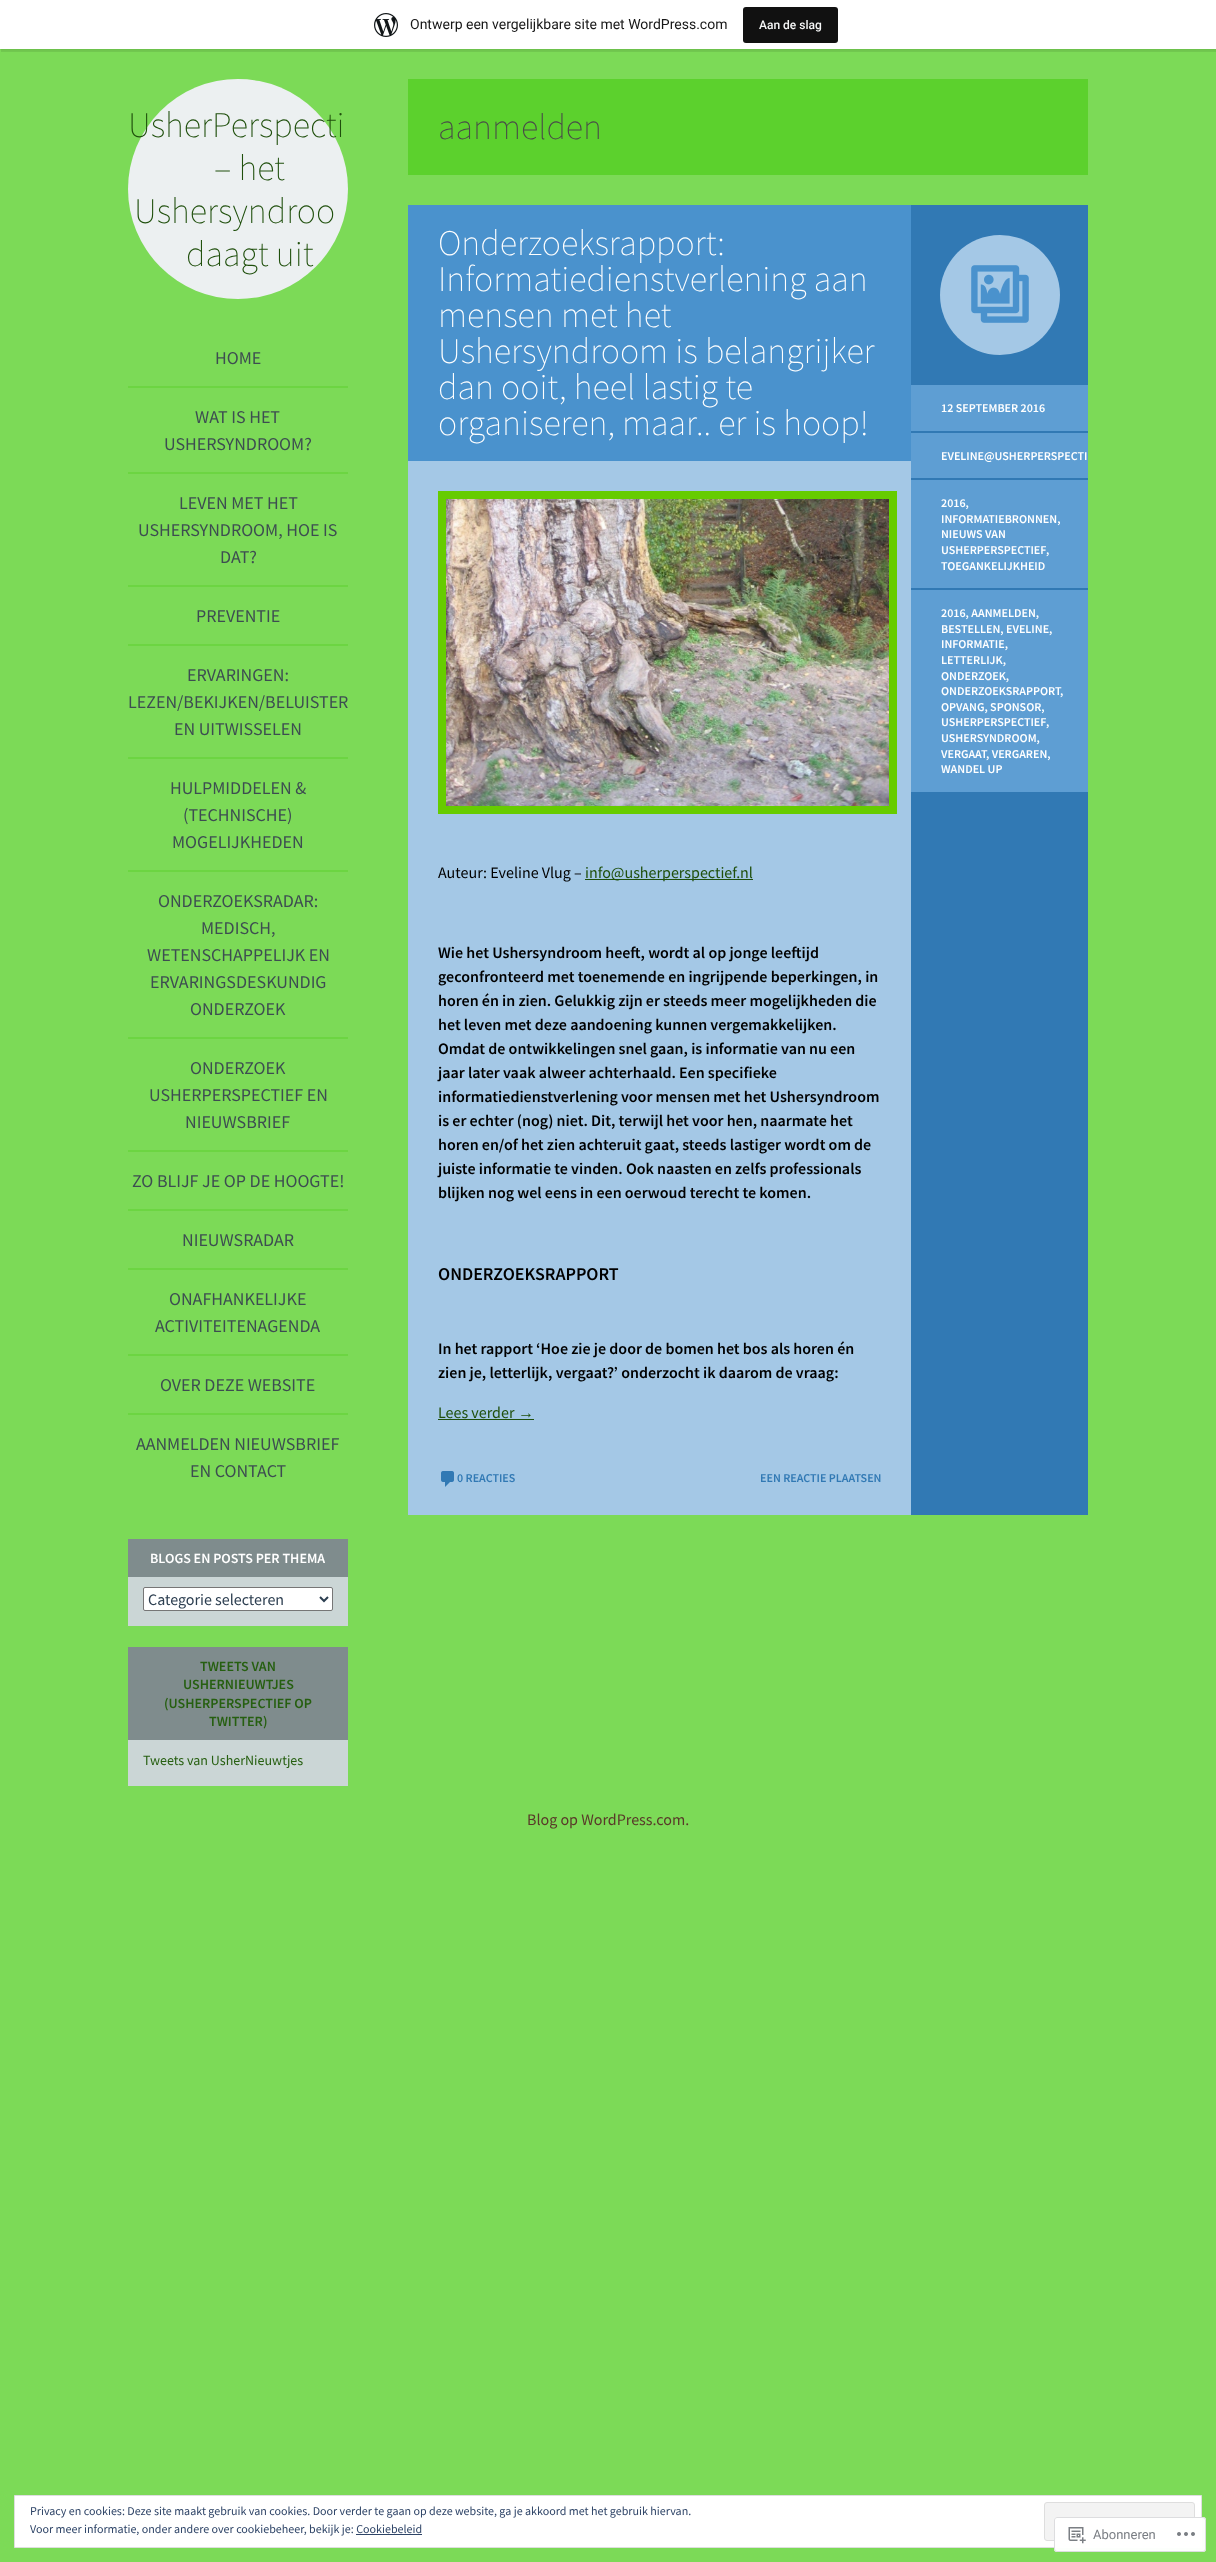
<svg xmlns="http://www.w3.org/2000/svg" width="1216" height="2562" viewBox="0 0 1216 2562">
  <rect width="100%" height="100%" fill="#7cda57"/>
  <path d="M0 1h1216v49H0z" fill="#0000000d" filter="blur(1px)"/>
  <path d="M1 49V52H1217V3H1216V49Z" fill="#00000014"/>
  <path d="M0 0h1216v49H0z" fill="#fff"/>
  <image x="374" y="13" width="24" height="24" href="img/1.png"/>
  <rect x="743" y="7" width="95" height="36" rx="3" fill="#111"/>
  <circle cx="238" cy="189" r="110" fill="#ecf0f1"/>
  <path d="M128 386h220v2H128z" fill="#6cd542"/>
  <path d="M128 472h220v2H128z" fill="#6cd542"/>
  <path d="M128 585h220v2H128z" fill="#6cd542"/>
  <path d="M128 644h220v2H128z" fill="#6cd542"/>
  <path d="M128 757h220v2H128z" fill="#6cd542"/>
  <path d="M128 870h220v2H128z" fill="#6cd542"/>
  <path d="M128 1037h220v2H128z" fill="#6cd542"/>
  <path d="M128 1150h220v2H128z" fill="#6cd542"/>
  <path d="M128 1209h220v2H128z" fill="#6cd542"/>
  <path d="M128 1268h220v2H128z" fill="#6cd542"/>
  <path d="M128 1354h220v2H128z" fill="#6cd542"/>
  <path d="M128 1413h220v2H128z" fill="#6cd542"/>
  <path d="M408 79h680v96H408z" fill="#5cd12d"/>
  <path d="M408 461h503v1054H408z" fill="#a4c8e6"/>
  <path d="M408 205h503v256H408z" fill="#4a92cd"/>
  <path d="M442 495h451v315H442z" fill="none" stroke="#6c0" stroke-width="8"/>
  <image x="446" y="499" width="443" height="307" href="img/2.png"/>
  <path d="M585 879h168v1H585z" fill="#1f4f0c"/>
  <path d="M438 1419h96v1H438z" fill="#1f4f0c"/>
  <image x="441" y="1471" width="13" height="16" href="img/3.png"/>
  <path d="M911 205h177v1310H911z" fill="#3179b4"/>
  <circle cx="1000" cy="295" r="60" fill="#a4c8e6"/>
  <image x="971" y="265" width="58" height="58" href="img/4.png"/>
  <path d="M911 385h177v46H911z" fill="#5e9ed3"/>
  <path d="M911 433h177v45H911z" fill="#5e9ed3"/>
  <path d="M911 480h177v108H911z" fill="#5e9ed3"/>
  <path d="M911 590h177v202H911z" fill="#5e9ed3"/>
  <path d="M128 1577h220v49H128z" fill="#cbd6d6"/>
  <path d="M128 1539h220v38H128z" fill="#7f8c8d"/>
  <rect x="143.5" y="1587.5" width="189" height="23" rx="1.5" fill="#fff" stroke="#767676"/>
  <path d="M320 1597L324 1601L328 1597" fill="none" stroke="#2c3e50" stroke-width="2"/>
  <path d="M128 1740h220v46H128z" fill="#cbd6d6"/>
  <path d="M128 1647h220v93H128z" fill="#7f8c8d"/>
  <path d="M14.5 2495.5h1187v52H14.5z" fill="#fff" stroke="#dedede"/>
  <rect x="1044.5" y="2502.5" width="150" height="38" rx="2.5" fill="#f3f3f3" stroke="#dedede"/>
  <path d="M356 2534h66v1H356z" fill="#2e4467"/>
  <rect x="1054" y="2517" width="152" height="35" rx="3" fill="#fffffffa"/>
  <rect x="1054.5" y="2517.5" width="151" height="34" rx="2.5" fill="none" stroke="#dcdcdefa"/>
  <image x="1068" y="2527" width="18" height="17" href="img/5.png"/>
  <image x="1177" y="2532" width="18" height="4" href="img/6.png"/>
  <text x="410" y="29" font-family="Roboto" font-size="14" fill="#171717">Ontwerp een vergelijkbare site met WordPress.com</text>
  <text x="759" y="29" font-family="Roboto" font-size="12" font-weight="500" fill="#f6f7f7">Aan de slag</text>
  <g font-family="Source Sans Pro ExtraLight" font-size="36" font-weight="200" fill="#1f4f0c">
    <text x="128" y="137">UsherPerspecti</text>
    <text x="214" y="180">– het</text>
    <text x="134" y="223">Ushersyndroo</text>
    <text x="186" y="266">daagt uit</text>
  </g>
  <g font-family="Source Sans Pro" font-size="18" fill="#3d4d51">
    <text x="215" y="364">HOME</text>
    <text x="195" y="423">WAT IS HET</text>
    <text x="164" y="450">USHERSYNDROOM?</text>
    <text x="179" y="509">LEVEN MET HET</text>
    <text x="138" y="536">USHERSYNDROOM, HOE IS</text>
    <text x="220" y="563">DAT?</text>
    <text x="196" y="622">PREVENTIE</text>
    <text x="187" y="681">ERVARINGEN:</text>
    <text x="128" y="708">LEZEN/BEKIJKEN/BELUISTER</text>
    <text x="174" y="735">EN UITWISSELEN</text>
    <text x="170" y="794">HULPMIDDELEN &amp;</text>
    <text x="183" y="821">(TECHNISCHE)</text>
    <text x="172" y="848">MOGELIJKHEDEN</text>
    <text x="158" y="907">ONDERZOEKSRADAR:</text>
    <text x="201" y="934">MEDISCH,</text>
    <text x="147" y="961">WETENSCHAPPELIJK EN</text>
    <text x="150" y="988">ERVARINGSDESKUNDIG</text>
    <text x="190" y="1015">ONDERZOEK</text>
    <text x="190" y="1074">ONDERZOEK</text>
    <text x="149" y="1101">USHERPERSPECTIEF EN</text>
    <text x="185" y="1128">NIEUWSBRIEF</text>
    <text x="132" y="1187">ZO BLIJF JE OP DE HOOGTE!</text>
    <text x="182" y="1246">NIEUWSRADAR</text>
    <text x="169" y="1305">ONAFHANKELIJKE</text>
    <text x="155" y="1332">ACTIVITEITENAGENDA</text>
    <text x="160" y="1391">OVER DEZE WEBSITE</text>
    <text x="136" y="1450">AANMELDEN NIEUWSBRIEF</text>
    <text x="190" y="1477">EN CONTACT</text>
  </g>
  <text x="438" y="139" font-family="Source Sans Pro ExtraLight" font-size="36" font-weight="200" fill="#494949">aanmelden</text>
  <g font-family="Source Sans Pro ExtraLight" font-size="36" font-weight="200" fill="#fff">
    <text x="438" y="255">Onderzoeksrapport:</text>
    <text x="438" y="291">Informatiedienstverlening aan</text>
    <text x="438" y="327">mensen met het</text>
    <text x="438" y="363">Ushersyndroom is belangrijker</text>
    <text x="438" y="399">dan ooit, heel lastig te</text>
    <text x="438" y="435">organiseren, maar.. er is hoop!</text>
  </g>
  <text x="438" y="878" font-family="Source Sans Pro" font-size="16" fill="#000">Auteur: Eveline Vlug –</text>
  <text x="585" y="878" font-family="Source Sans Pro" font-size="16" fill="#1f4f0c">info@usherperspectief.nl</text>
  <g font-family="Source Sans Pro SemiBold" font-size="16" font-weight="600" fill="#000">
    <text x="438" y="958">Wie het Ushersyndroom heeft, wordt al op jonge leeftijd</text>
    <text x="438" y="982">geconfronteerd met toenemende en ingrijpende beperkingen, in</text>
    <text x="438" y="1006">horen én in zien. Gelukkig zijn er steeds meer mogelijkheden die</text>
    <text x="438" y="1030">het leven met deze aandoening kunnen vergemakkelijken.</text>
    <text x="438" y="1054">Omdat de ontwikkelingen snel gaan, is informatie van nu een</text>
    <text x="438" y="1078">jaar later vaak alweer achterhaald. Een specifieke</text>
    <text x="438" y="1102">informatiedienstverlening voor mensen met het Ushersyndroom</text>
    <text x="438" y="1126">is er echter (nog) niet. Dit, terwijl het voor hen, naarmate het</text>
    <text x="438" y="1150">horen en/of het zien achteruit gaat, steeds lastiger wordt om de</text>
    <text x="438" y="1174">juiste informatie te vinden. Ook naasten en zelfs professionals</text>
    <text x="438" y="1198">blijken nog wel eens in een oerwoud terecht te komen.</text>
  </g>
  <text x="438" y="1280" font-family="Source Sans Pro SemiBold" font-size="18" font-weight="600" fill="#000">ONDERZOEKSRAPPORT</text>
  <g font-family="Source Sans Pro SemiBold" font-size="16" font-weight="600" fill="#000">
    <text x="438" y="1354">In het rapport ‘Hoe zie je door de bomen het bos als horen én</text>
    <text x="438" y="1378">zien je, letterlijk, vergaat?’ onderzocht ik daarom de vraag:</text>
  </g>
  <text x="438" y="1418" font-family="Source Sans Pro" font-size="16" fill="#1f4f0c">Lees verder</text>
  <text x="518" y="1418" font-family="Liberation Sans" font-size="16" fill="#1f4f0c">→</text>
  <g font-family="Source Sans Pro SemiBold" font-size="12" font-weight="600" fill="#3179b4">
    <text x="457" y="1482">0 REACTIES</text>
    <text x="760" y="1482">EEN REACTIE PLAATSEN</text>
  </g>
  <g font-family="Source Sans Pro SemiBold" font-size="12" font-weight="600" fill="#fff">
    <text x="941" y="412">12 SEPTEMBER 2016</text>
    <text x="941" y="460">EVELINE@USHERPERSPECTI</text>
    <text x="941" y="507">2016,</text>
    <text x="941" y="523">INFORMATIEBRONNEN,</text>
    <text x="941" y="538">NIEUWS VAN</text>
    <text x="941" y="554">USHERPERSPECTIEF</text>
    <text x="1046" y="554">,</text>
    <text x="941" y="570">TOEGANKELIJKHEID</text>
    <text x="941" y="617">2016, AANMELDEN,</text>
    <text x="941" y="633">BESTELLEN, EVELINE,</text>
    <text x="941" y="648">INFORMATIE,</text>
    <text x="941" y="664">LETTERLIJK,</text>
    <text x="941" y="680">ONDERZOEK,</text>
    <text x="941" y="695">ONDERZOEKSRAPPORT</text>
    <text x="1060" y="695">,</text>
    <text x="941" y="711">OPVANG, SPONSOR,</text>
    <text x="941" y="726">USHERPERSPECTIEF</text>
    <text x="1046" y="726">,</text>
    <text x="941" y="742">USHERSYNDROOM,</text>
    <text x="941" y="758">VERGAAT</text>
    <text x="986" y="758">, VERGAREN,</text>
    <text x="941" y="773">WANDEL UP</text>
  </g>
  <text x="150" y="1563" font-family="Source Sans Pro SemiBold" font-size="14" font-weight="600" fill="#fff">BLOGS EN POSTS PER THEMA</text>
  <text x="148" y="1605" font-family="Source Sans Pro" font-size="16" fill="#2c3e50">Categorie selecteren</text>
  <g font-family="Source Sans Pro SemiBold" font-size="14" font-weight="600" fill="#265f10">
    <text x="200" y="1671">TWEETS VAN</text>
    <text x="183" y="1689">USHERNIEUWTJES</text>
    <text x="164" y="1708">(USHERPERSPECTIEF OP</text>
    <text x="209" y="1726">TWITTER)</text>
  </g>
  <text x="143" y="1765" font-family="Source Sans Pro" font-size="14" fill="#265f10">Tweets van UsherNieuwtjes</text>
  <text x="527" y="1825" font-family="Source Sans Pro" font-size="16" fill="#593929">Blog op WordPress.com.</text>
  <g font-family="Source Sans Pro" font-size="12" fill="#2e4467">
    <text x="30" y="2515">Privacy en cookies: Deze site maakt gebruik van cookies. Door verder te gaan op deze website, ga je akkoord met het gebruik hiervan.</text>
    <text x="30" y="2533">Voor meer informatie, onder andere over cookiebeheer, bekijk je: Cookiebeleid</text>
  </g>
  <text x="1093" y="2539" font-family="Roboto" font-size="13" fill="#7a7e84">Abonneren</text>
</svg>
